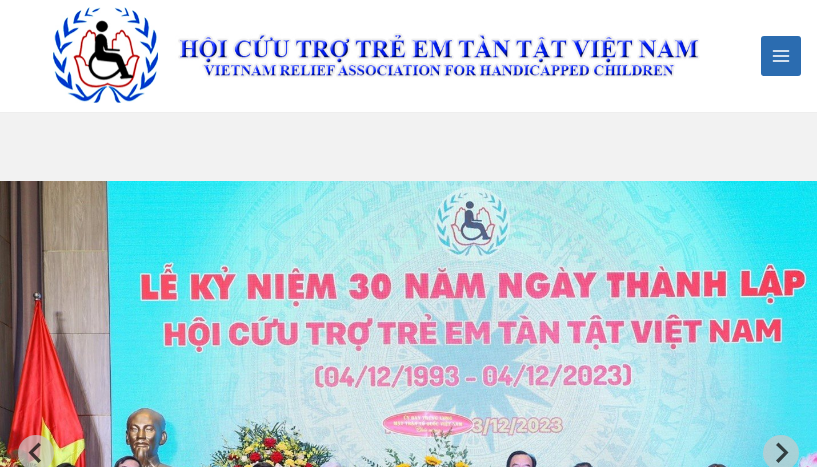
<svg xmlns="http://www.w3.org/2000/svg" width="817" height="467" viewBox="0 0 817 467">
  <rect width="100%" height="100%" fill="#f2f2f2"/>
  <path d="M0 0h817v112H0z" fill="#fff"/>
  <path d="M0 112h817v1H0z" fill="#eee"/>
  <image x="53" y="7" width="647" height="96" href="img/1.png"/>
  <rect x="761" y="36" width="40" height="40" rx="3" fill="#2b6cb0"/>
  <image x="772" y="50" width="18" height="12" href="img/2.png"/>
  <image x="0" y="181" width="817" height="286" href="img/3.png"/>
  <circle cx="36" cy="453" r="18" fill="#ccccccb3"/>
  <path d="M38.5 442.5L41 445L33 452.5L41 460.5L38.5 463L28.5 452.5Z" fill="#000000b3"/>
  <circle cx="781" cy="453" r="18" fill="#ccccccb3"/>
  <path d="M778.5 442.5L776 445L784 452.5L776 460.5L778.5 463L788.5 452.5Z" fill="#000000b3"/>
</svg>
